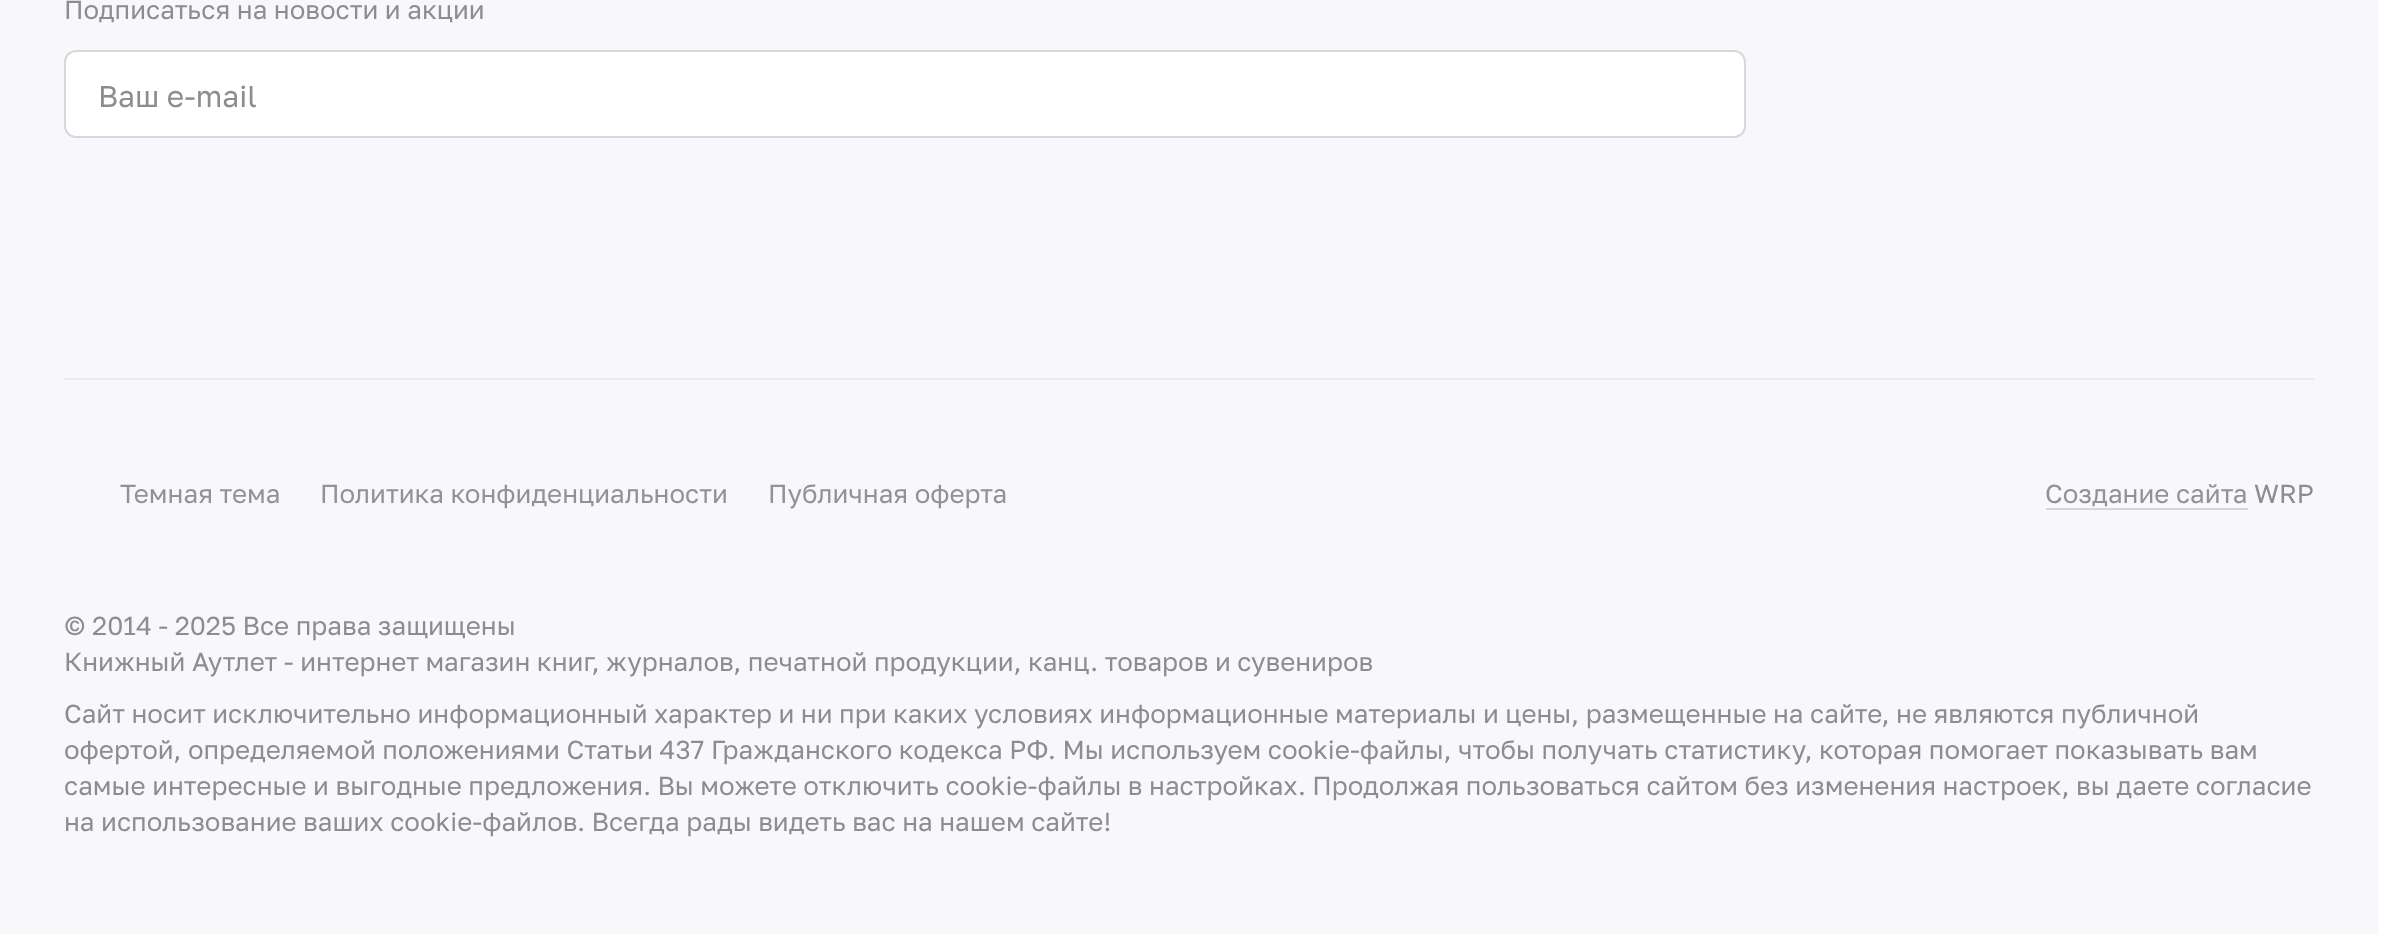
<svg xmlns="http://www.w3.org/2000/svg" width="2390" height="934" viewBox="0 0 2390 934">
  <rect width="100%" height="100%" fill="#fff"/>
  <path d="M0 0h2378v934H0z" fill="#f8f8fc"/>
  <rect x="65" y="51" width="1680" height="86" rx="11" fill="#fff" stroke="#d7d8da" stroke-width="2"/>
  <path d="M64 378h2250v2H64z" fill="#ebebee"/>
  <path d="M2046 508h202v2H2046z" fill="#d6d6da"/>
  <text x="64" y="19" font-family="Golos Text" font-size="26" fill="#8d8d8d">Подписаться на новости и акции</text>
  <text x="98" y="107" font-family="Golos Text" font-size="30" fill="#8d8d8d">Ваш e-mail</text>
  <g font-family="Golos Text" font-size="26" fill="#919196">
    <text x="120" y="503">Темная тема</text>
    <text x="320" y="503">Политика конфиденциальности</text>
    <text x="768" y="503">Публичная оферта</text>
    <text x="2045" y="503">Создание сайта</text>
  </g>
  <g font-family="Golos Text" font-size="26" fill="#8d8d8d">
    <text x="2254" y="503">WRP</text>
    <text x="64" y="635">© 2014 - 2025 Все права защищены</text>
    <text x="64" y="671">Книжный Аутлет - интернет магазин книг, журналов, печатной продукции, канц. товаров и сувениров</text>
    <text x="64" y="723">Cайт носит исключительно информационный характер и ни при каких условиях информационные материалы и цены, размещенные на сайте, не являются публичной</text>
    <text x="64" y="759">офертой, определяемой положениями Статьи 437 Гражданского кодекса РФ. Мы используем cookie-файлы, чтобы получать статистику, которая помогает показывать вам</text>
    <text x="64" y="795">самые интересные и выгодные предложения. Вы можете отключить cookie-файлы в настройках. Продолжая пользоваться сайтом без изменения настроек, вы даете согласие</text>
    <text x="64" y="831">на использование ваших cookie-файлов. Всегда рады видеть вас на нашем сайте!</text>
  </g>
</svg>
